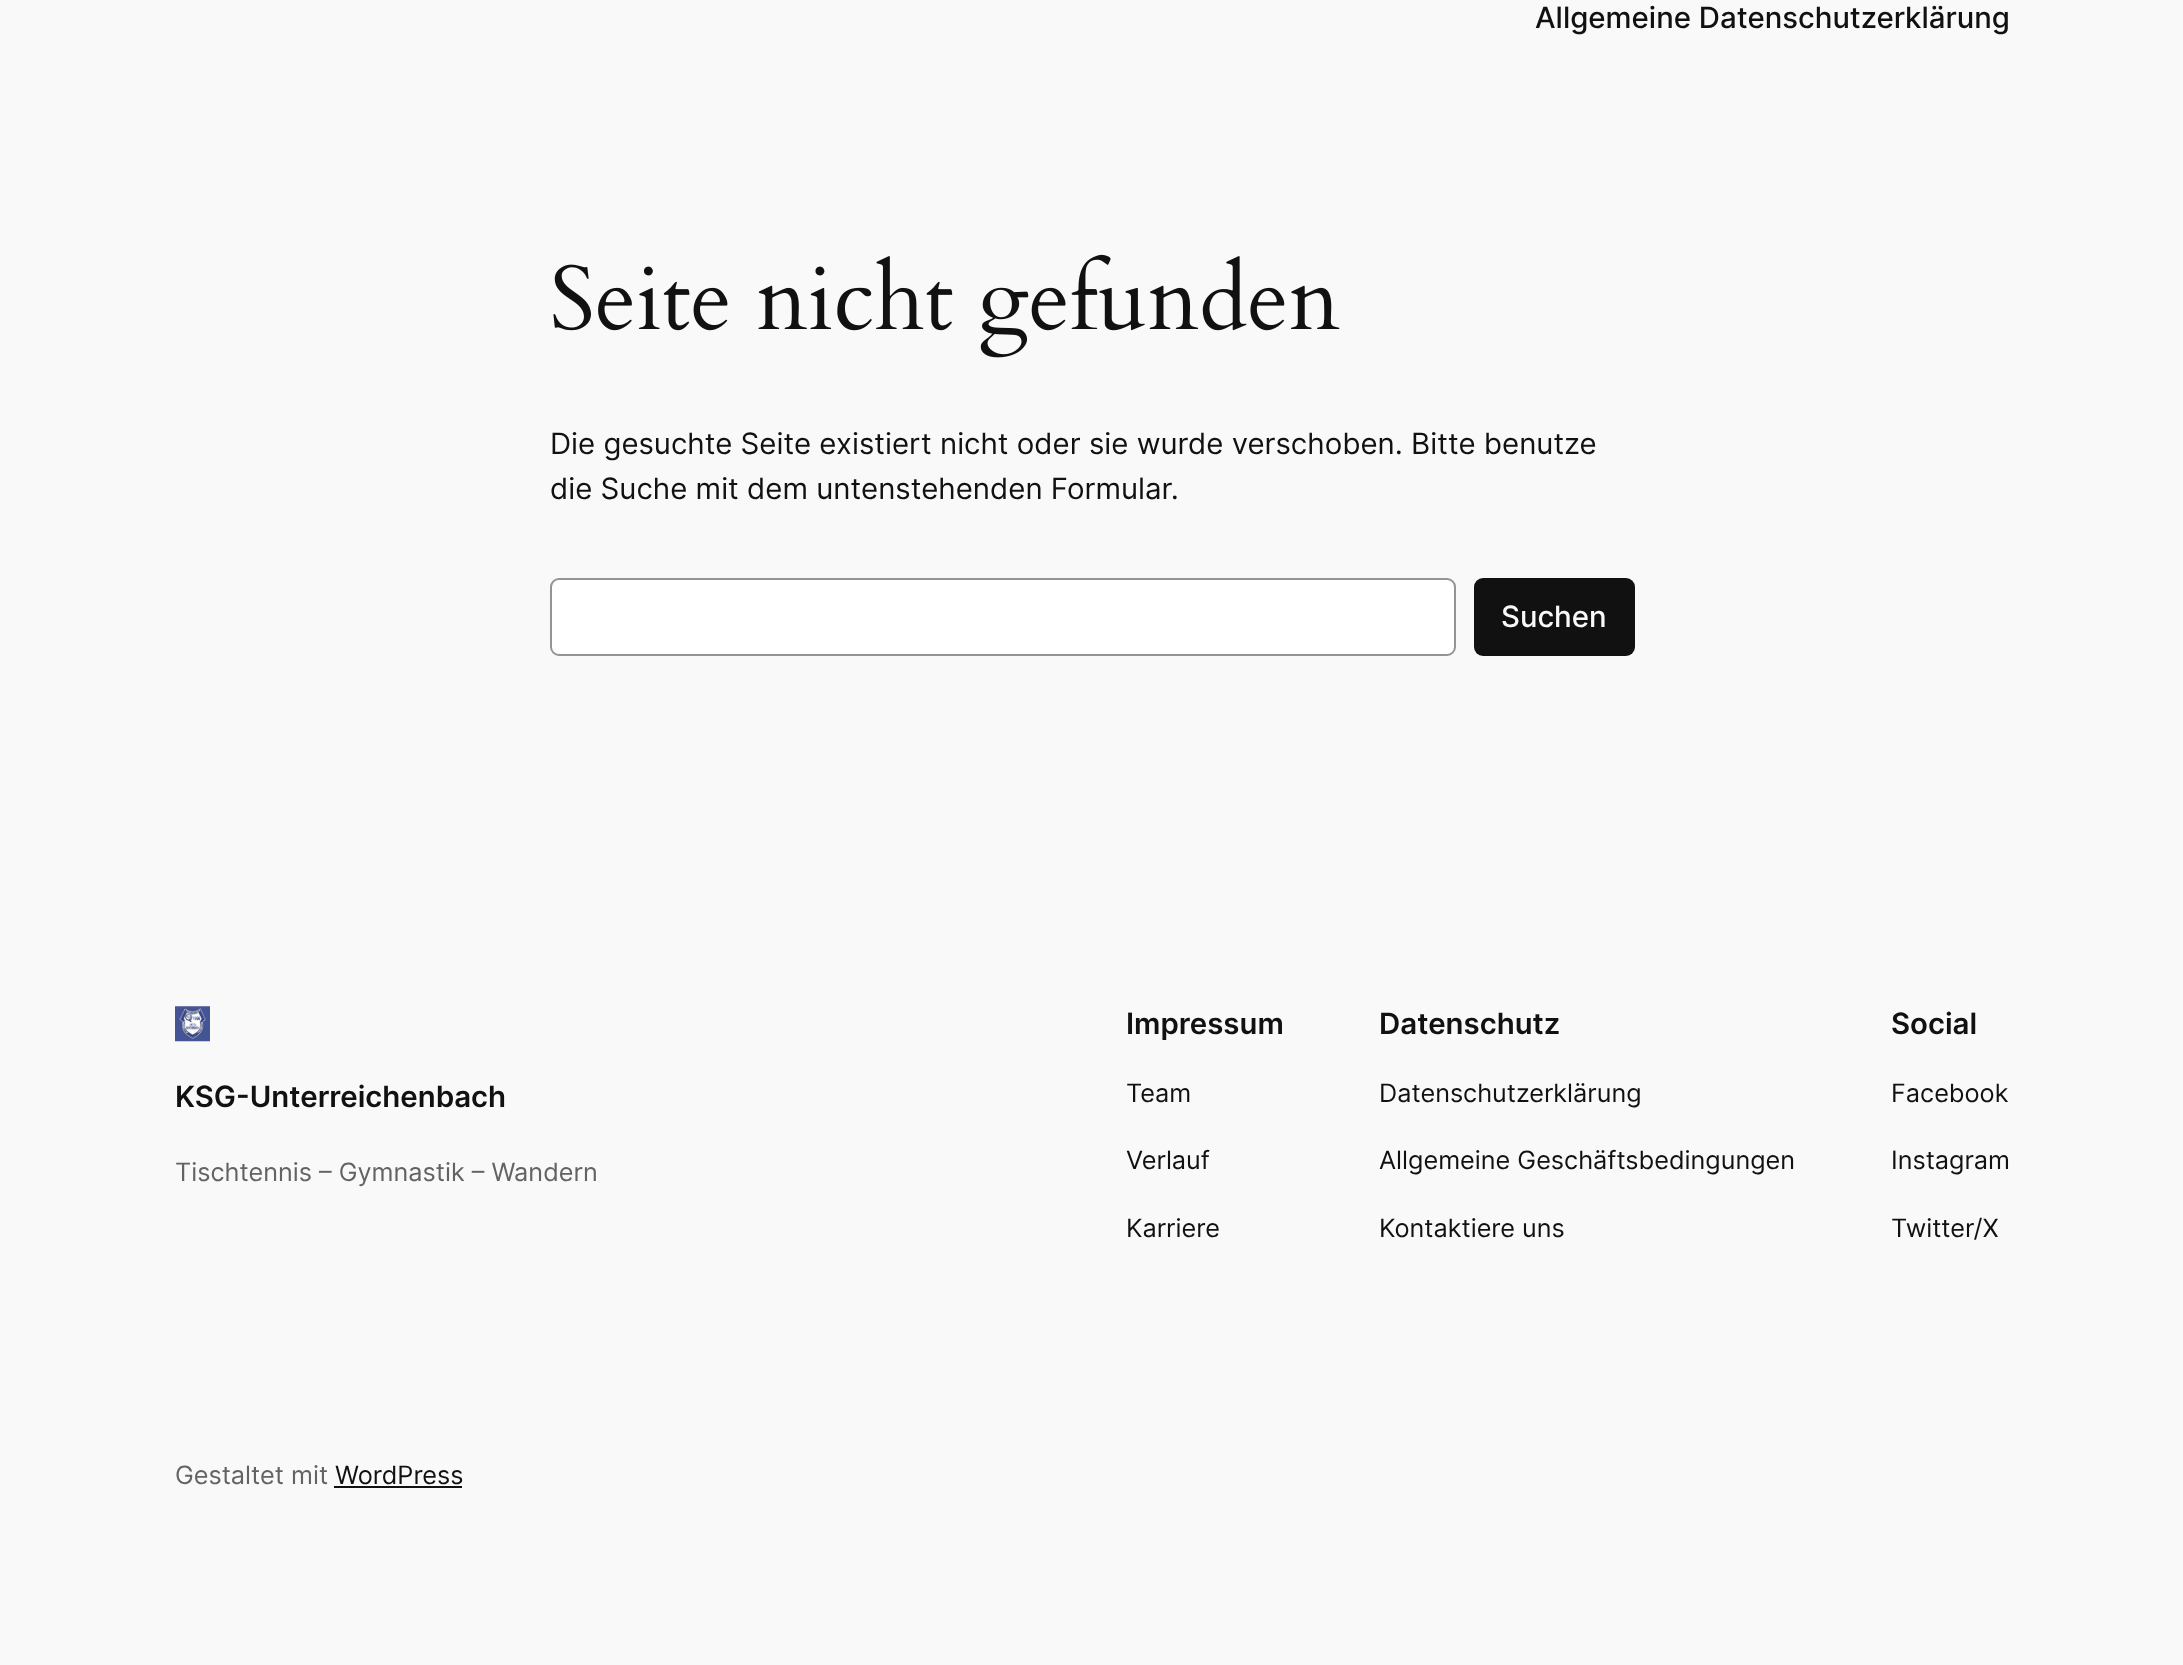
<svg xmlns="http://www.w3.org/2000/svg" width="2183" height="1665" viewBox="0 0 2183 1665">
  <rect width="100%" height="100%" fill="#f9f9f9"/>
  <image x="553" y="254" width="787" height="104" href="img/1.png"/>
  <rect x="551" y="579" width="904" height="76" rx="8" fill="#fff" stroke="#949494" stroke-width="2"/>
  <rect x="1474" y="578" width="161" height="78" rx="9" fill="#111"/>
  <image x="175" y="1006" width="35" height="36" href="img/2.png"/>
  <path d="M334 1486h128v2H334z" fill="#111"/>
  <text x="1535" y="28" font-family="Inter" font-size="29.4" font-weight="500" fill="#111">Allgemeine Datenschutzerklärung</text>
  <g font-family="Inter" font-size="29.4" fill="#111">
    <text x="550" y="454">Die gesuchte Seite existiert nicht oder sie wurde verschoben. Bitte benutze</text>
    <text x="550" y="499">die Suche mit dem untenstehenden Formular.</text>
  </g>
  <text x="1501" y="627" font-family="Inter" font-size="29.4" font-weight="500" fill="#f9f9f9">Suchen</text>
  <text x="175" y="1107" font-family="Inter" font-size="29.4" font-weight="600" fill="#111">KSG-Unterreichenbach</text>
  <text x="175" y="1181" font-family="Inter" font-size="25.25" fill="#636363">Tischtennis – Gymnastik – Wandern</text>
  <text x="1126" y="1034" font-family="Inter" font-size="29.4" font-weight="600" fill="#111">Impressum</text>
  <g font-family="Inter" font-size="25.25" fill="#111">
    <text x="1126" y="1102">Team</text>
    <text x="1126" y="1169">Verlauf</text>
    <text x="1126" y="1237">Karriere</text>
  </g>
  <text x="1379" y="1034" font-family="Inter" font-size="29.4" font-weight="600" fill="#111">Datenschutz</text>
  <g font-family="Inter" font-size="25.25" fill="#111">
    <text x="1379" y="1102">Datenschutzerklärung</text>
    <text x="1379" y="1169">Allgemeine Geschäftsbedingungen</text>
    <text x="1379" y="1237">Kontaktiere uns</text>
  </g>
  <text x="1891" y="1034" font-family="Inter" font-size="29.4" font-weight="600" fill="#111">Social</text>
  <g font-family="Inter" font-size="25.25" fill="#111">
    <text x="1891" y="1102">Facebook</text>
    <text x="1891" y="1169">Instagram</text>
    <text x="1891" y="1237">Twitter/X</text>
  </g>
  <text x="175" y="1484" font-family="Inter" font-size="25.25" fill="#636363">Gestaltet mit</text>
  <text x="335" y="1484" font-family="Inter" font-size="25.25" fill="#111">WordPress</text>
</svg>
